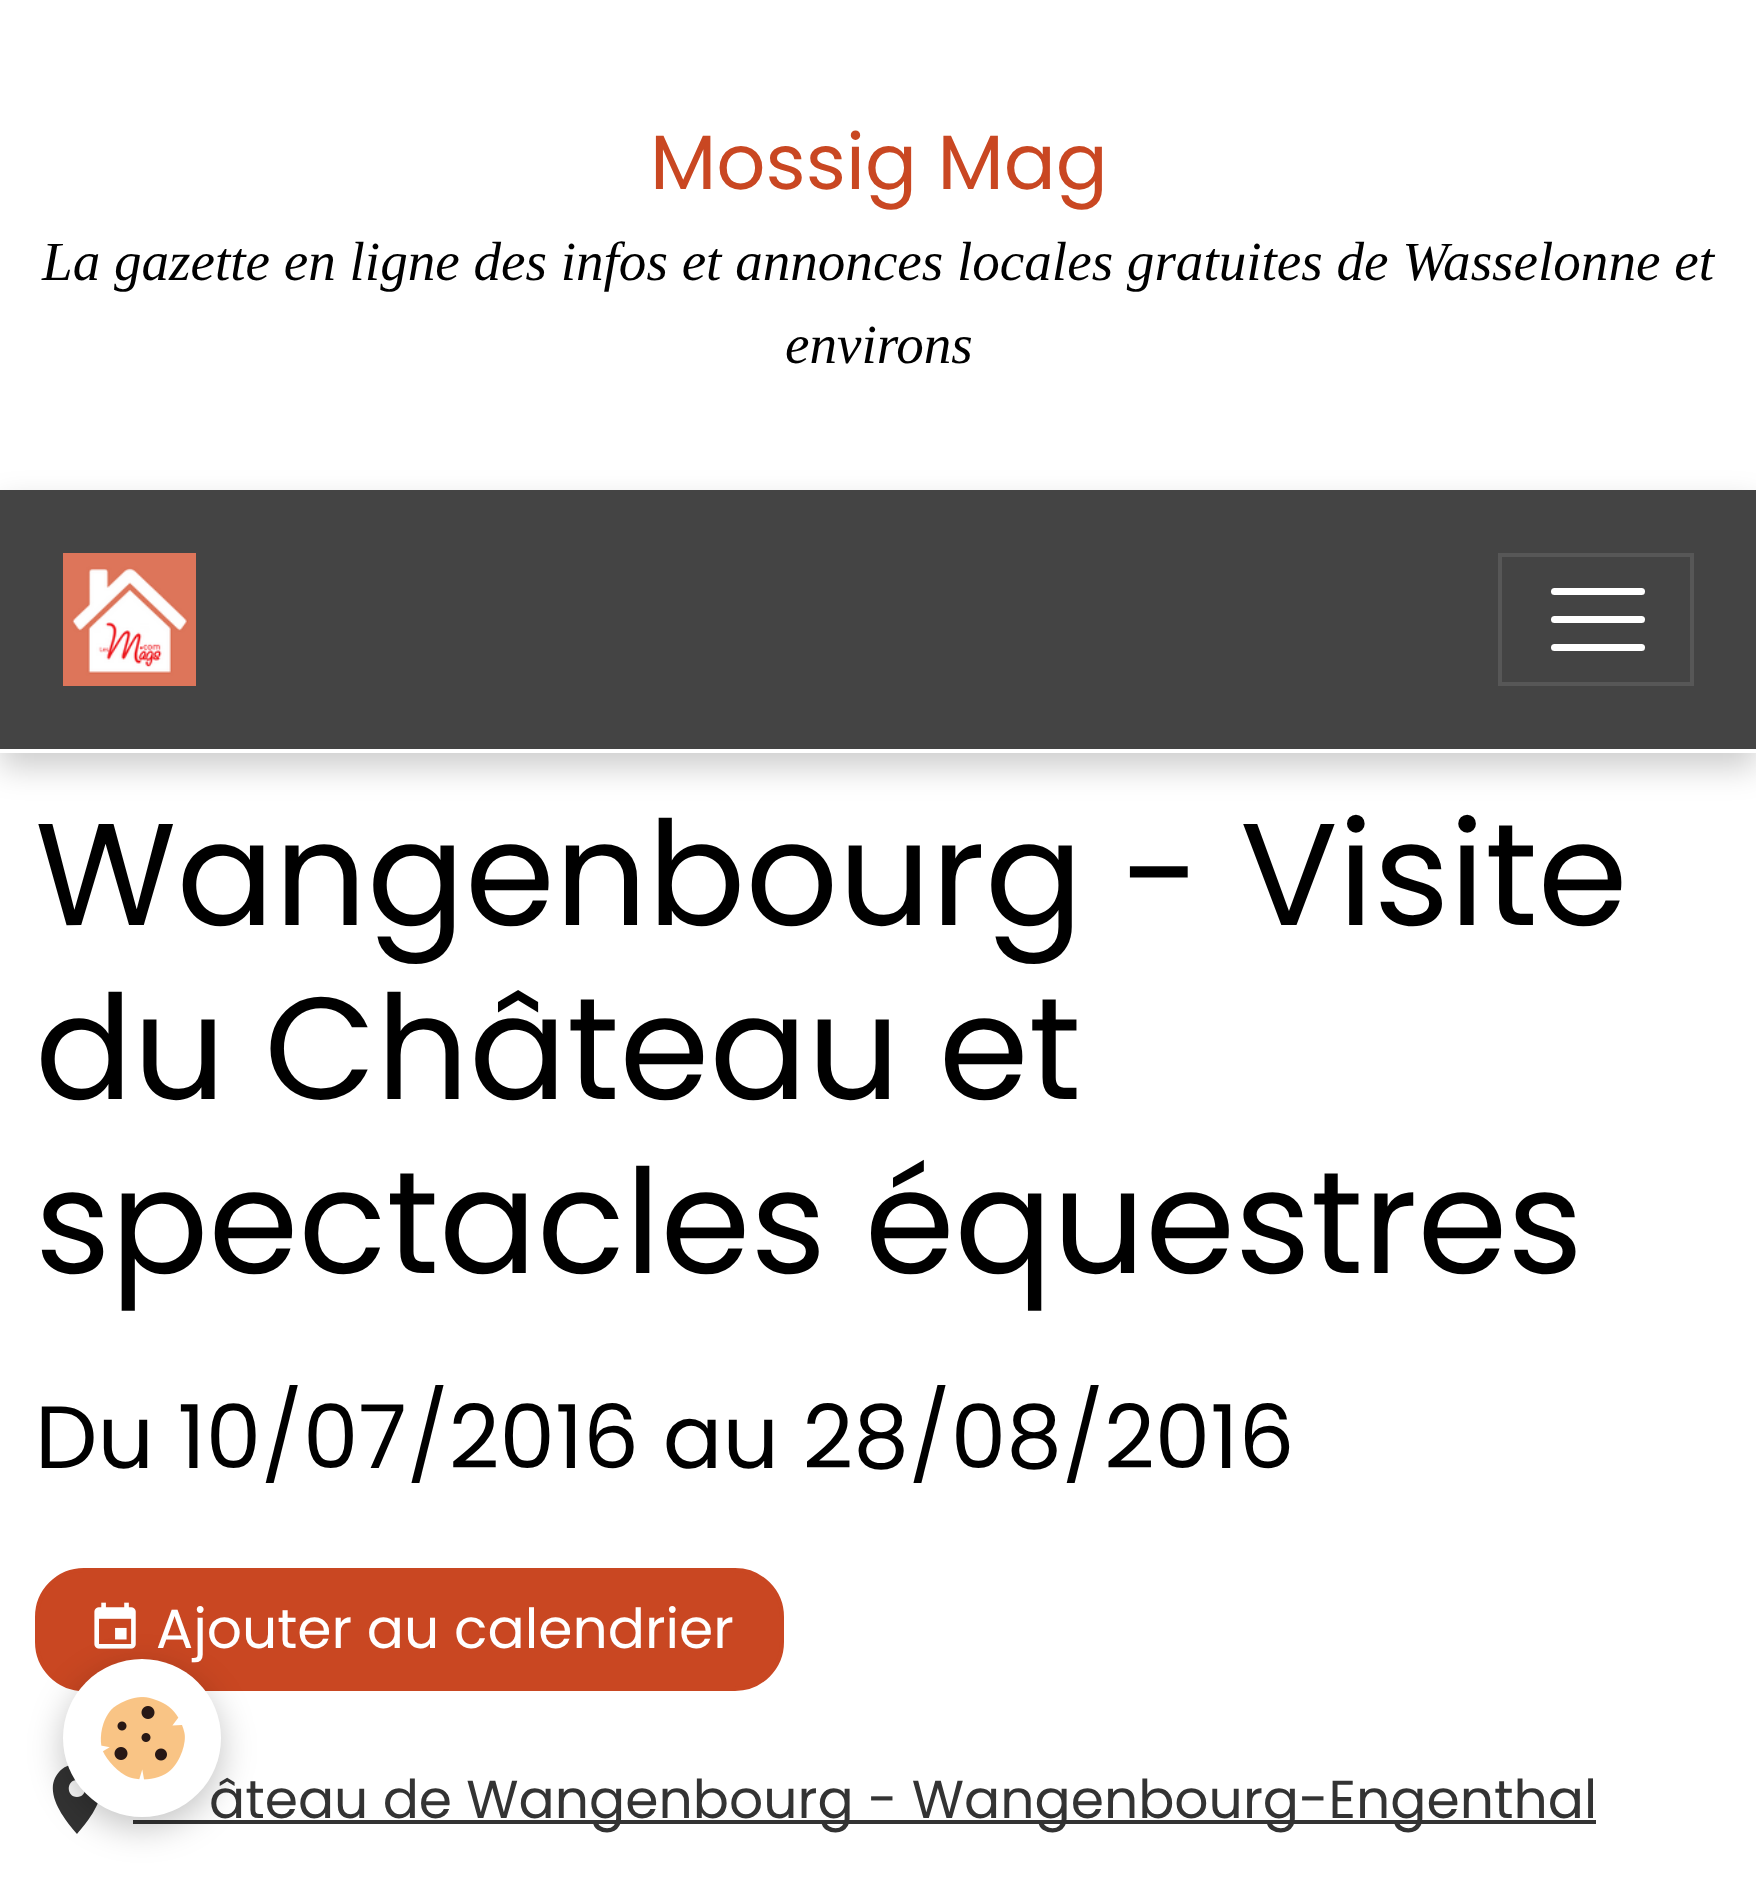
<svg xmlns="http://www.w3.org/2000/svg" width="1756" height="1879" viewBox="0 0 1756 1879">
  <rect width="100%" height="100%" fill="#fff"/>
  <path d="M0 504h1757v263H0z" fill="#00000033" filter="blur(16px)"/>
  <path d="M0 490h1756v259H0z" fill="#444"/>
  <path d="M0 749h1756v4H0z" fill="#fff"/>
  <image x="63" y="553" width="133" height="133" href="img/1.png"/>
  <path d="M1500 555h192v129H1500z" fill="none" stroke="#575757" stroke-width="4"/>
  <rect x="1551" y="588" width="94" height="7" rx="3.5" fill="#fff"/>
  <rect x="1551" y="616" width="94" height="7" rx="3.5" fill="#fff"/>
  <rect x="1551" y="644" width="94" height="7" rx="3.5" fill="#fff"/>
  <rect x="37" y="1570" width="745" height="119" rx="47" fill="#c94722" stroke="#c94722" stroke-width="4"/>
  <image x="94" y="1602" width="42" height="47" href="img/2.png"/>
  <path d="M77 1764C84 1764 91 1767 95 1772C112 1791 90 1819 77 1834C64 1819 42 1791 59 1772C63 1767 70 1764 77 1764ZM77 1797C88 1797 88 1780 77 1780C66 1780 66 1797 77 1797Z" fill="#333"/>
  <path d="M133 1820h1463v4H133z" fill="#333"/>
  <rect x="63" y="1670" width="158" height="157" rx="78.5" fill="#0000003d" filter="blur(17.5px)"/>
  <text x="650" y="189" font-family="Poppins" font-size="77" fill="#c94722">Mossig Mag</text>
  <g font-family="Liberation Serif" font-size="55.1" font-style="italic" fill="#000">
    <text x="42" y="280">La gazette en ligne des infos et annonces locales gratuites de Wasselonne et</text>
    <text x="785" y="363">environs</text>
  </g>
  <g font-family="Poppins" font-size="144.9" fill="#000">
    <text x="35" y="925">Wangenbourg - Visite</text>
    <text x="35" y="1099">du Château et</text>
    <text x="35" y="1273">spectacles équestres</text>
  </g>
  <text x="35" y="1468" font-family="Poppins" font-size="88.25" fill="#000">Du 10/07/2016 au 28/08/2016</text>
  <text x="156" y="1648" font-family="Poppins" font-size="55.1" fill="#fff">Ajouter au calendrier</text>
  <text x="209" y="1818" font-family="Poppins" font-size="53.55" fill="#333">âteau de Wangenbourg - Wangenbourg-Engenthal</text>
  <circle cx="142" cy="1738" r="79" fill="#fff"/>
  <image x="100" y="1697" width="85" height="83" href="img/3.png"/>
</svg>
